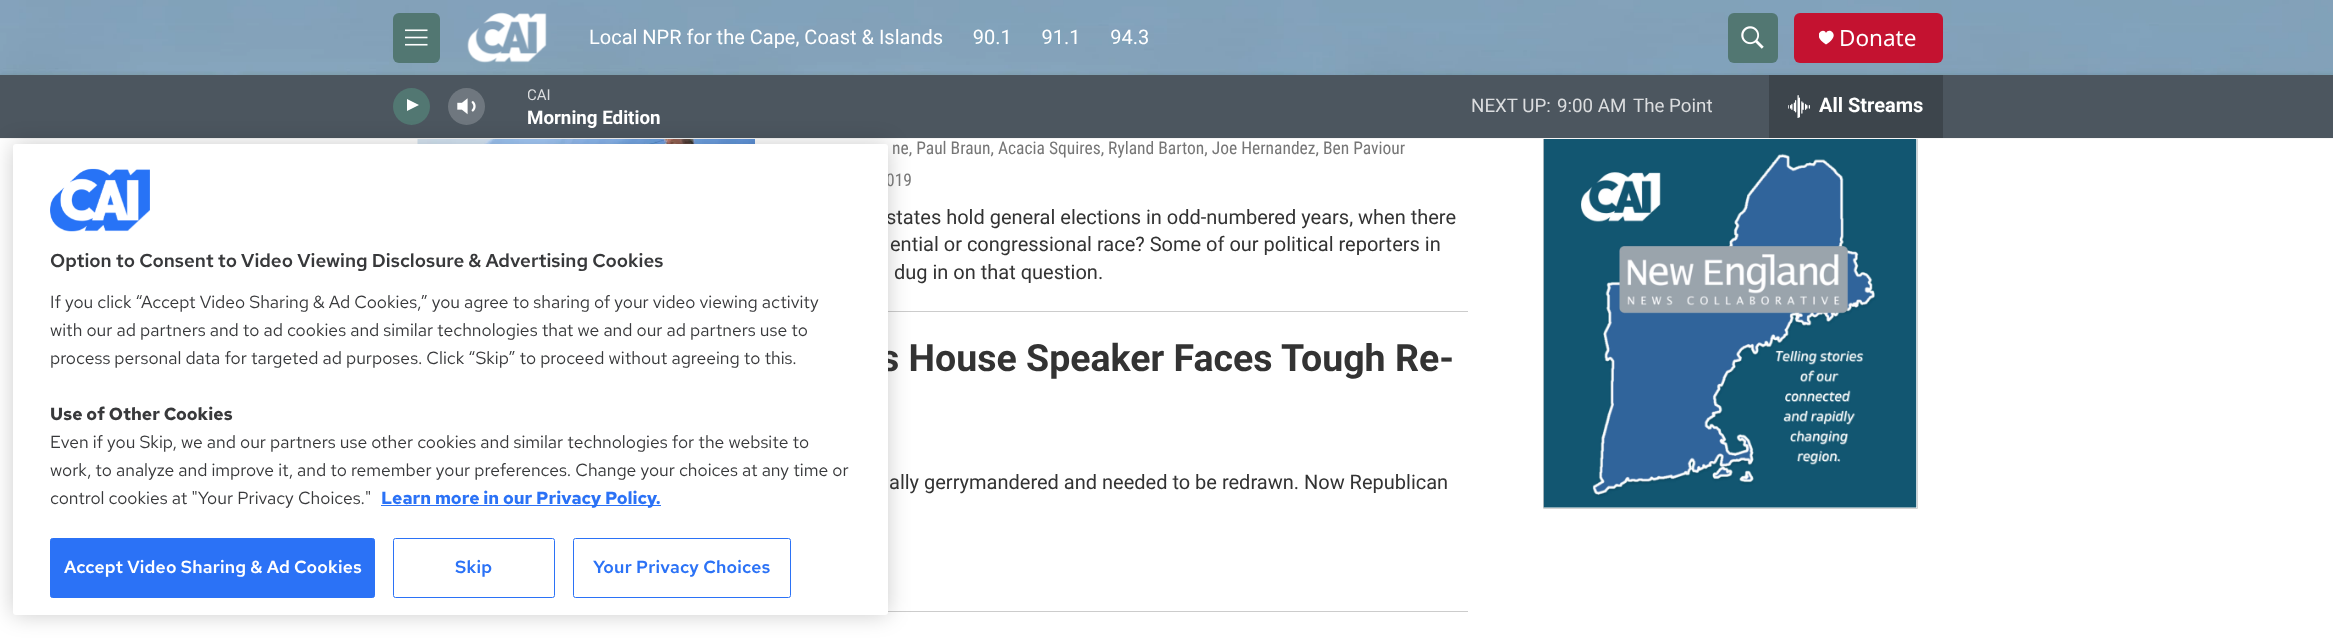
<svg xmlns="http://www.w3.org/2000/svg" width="2333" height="639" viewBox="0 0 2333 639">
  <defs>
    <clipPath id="clip1"><path d="M1819 30h15v15H1819z"/></clipPath>
    <clipPath id="clip2"><path d="M528 84h132v22H528z"/></clipPath>
  </defs>
  <rect width="100%" height="100%" fill="#fff"/>
  <path d="M1543.5 134.5h374v374H1543.5z" fill="none" stroke="#d3d3d3"/>
  <path d="M0 138h2333v1H0z" fill="#f5f5f5"/>
  <image x="0" y="0" width="2333" height="75" href="img/1.png"/>
  <rect x="393" y="13" width="47" height="50" rx="6" fill="#527772"/>
  <image x="405" y="29" width="23" height="17" href="img/2.png"/>
  <image x="467" y="12" width="80" height="51" href="img/3.png"/>
  <rect x="1728" y="13" width="50" height="50" rx="6" fill="#527772"/>
  <image x="1741" y="26" width="23" height="23" href="img/4.png"/>
  <rect x="1794" y="13" width="149" height="50" rx="6" fill="#c41230"/>
  <g clip-path="url(#clip1)">
    <path d="M1826 33C1824 26.5 1810.5 35 1826 44.5C1842 35 1828.5 26.5 1826 33Z" fill="#fff"/>
  </g>
  <path d="M0 75h2333v63H0z" fill="#4c565f"/>
  <circle cx="411.5" cy="106.5" r="18.5" fill="#527772"/>
  <path d="M407 99L419 105L407 111Z" fill="#fff"/>
  <image x="457" y="98" width="19" height="17" href="img/5.png"/>
  <circle cx="466.5" cy="106.5" r="18.5" fill="#ffffff33"/>
  <path d="M1769 75h174v63H1769z" fill="#3d454c"/>
  <image x="1788" y="95" width="22" height="23" href="img/6.png"/>
  <path d="M888 311h580v1H888z" fill="#ccc"/>
  <image x="417" y="139" width="338" height="5" href="img/8.png"/>
  <path d="M888 611h580v1H888z" fill="#ccc"/>
  <rect x="13" y="144" width="875" height="471" rx="3" fill="#00000033" filter="blur(11px)"/>
  <image x="1543" y="139" width="374" height="369" href="img/9.png"/>
  <text x="589" y="44" font-family="Roboto" font-size="20" fill="#fff" xml:space="preserve">Local NPR for the Cape, Coast &amp; Islands      90.1      91.1      94.3</text>
  <text x="1839" y="46" font-family="Noto Sans" font-size="22.5" fill="#fff">Donate</text>
  <g clip-path="url(#clip2)">
    <text x="527" y="100" font-family="Roboto" font-size="15" fill="#dbdddf">CAI</text>
  </g>
  <text x="527" y="124" font-family="'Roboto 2'" font-size="18.75" font-weight="bold" fill="#fff">Morning Edition</text>
  <g font-family="Roboto" font-size="18.75" fill="#dbdddf">
    <text x="1471" y="112">NEXT UP:</text>
    <text x="1557" y="112">9:00 AM</text>
    <text x="1633" y="112">The Point</text>
  </g>
  <text x="1819" y="112" font-family="'Roboto 2'" font-size="20" font-weight="bold" fill="#fff">All Streams</text>
  <g font-family="Roboto Condensed" font-size="17.5" fill="#767676">
    <text x="892" y="154">ne, Paul Braun, Acacia Squires, Ryland Barton, Joe Hernandez, Ben Paviour</text>
    <text x="886" y="186">019</text>
  </g>
  <g font-family="Roboto" font-size="20" fill="#333">
    <text x="886" y="224">states hold general elections in odd-numbered years, when there</text>
    <text x="890" y="251">ential or congressional race? Some of our political reporters in</text>
    <text x="894" y="279">dug in on that question.</text>
  </g>
  <text x="880" y="371" font-family="Roboto" font-size="37.5" font-weight="bold" fill="#333">s House Speaker Faces Tough Re-</text>
  <rect x="13" y="144" width="875" height="471" rx="3" fill="#fff"/>
  <image x="50" y="168" width="100" height="64" href="img/7.png"/>
  <rect x="573.5" y="538.5" width="217" height="59" rx="2" fill="none" stroke="#2b72f6"/>
  <text x="593" y="573" font-family="Red Hat Text" font-size="17.5" font-weight="600" letter-spacing="0.2" fill="#2b72f6">Your Privacy Choices</text>
  <rect x="393.5" y="538.5" width="161" height="59" rx="2" fill="none" stroke="#2b72f6"/>
  <text x="455" y="573" font-family="Red Hat Text" font-size="17.5" font-weight="600" letter-spacing="0.2" fill="#2b72f6">Skip</text>
  <rect x="50.5" y="538.5" width="324" height="59" rx="2" fill="#2b72f6" stroke="#2b72f6"/>
  <text x="64" y="573" font-family="Red Hat Text" font-size="17.5" font-weight="600" letter-spacing="0.2" fill="#fff">Accept Video Sharing &amp; Ad Cookies</text>
  <path d="M381 505h280v1H381z" fill="#2b72f6"/>
  <text x="381" y="504" font-family="Red Hat Text" font-size="17.5" font-weight="bold" fill="#2b72f6">Learn more in our Privacy Policy.</text>
  <g font-family="Red Hat Text" font-size="17.5" fill="#38393b">
    <text x="50" y="504">control cookies at "Your Privacy Choices."</text>
    <text x="50" y="476">work, to analyze and improve it, and to remember your preferences. Change your choices at any time or</text>
    <text x="50" y="448">Even if you Skip, we and our partners use other cookies and similar technologies for the website to</text>
  </g>
  <text x="50" y="420" font-family="Red Hat Text" font-size="17.5" font-weight="bold" fill="#38393b">Use of Other Cookies</text>
  <g font-family="Red Hat Text" font-size="17.5" fill="#38393b">
    <text x="50" y="364">process personal data for targeted ad purposes. Click “Skip” to proceed without agreeing to this.</text>
    <text x="50" y="336">with our ad partners and to ad cookies and similar technologies that we and our ad partners use to</text>
    <text x="50" y="308">If you click “Accept Video Sharing &amp; Ad Cookies,” you agree to sharing of your video viewing activity</text>
  </g>
  <text x="50" y="267" font-family="Red Hat Text" font-size="18.75" font-weight="600" fill="#38393b">Option to Consent to Video Viewing Disclosure &amp; Advertising Cookies</text>
  <text x="889" y="489" font-family="Roboto" font-size="20" fill="#333">ally gerrymandered and needed to be redrawn. Now Republican</text>
</svg>
